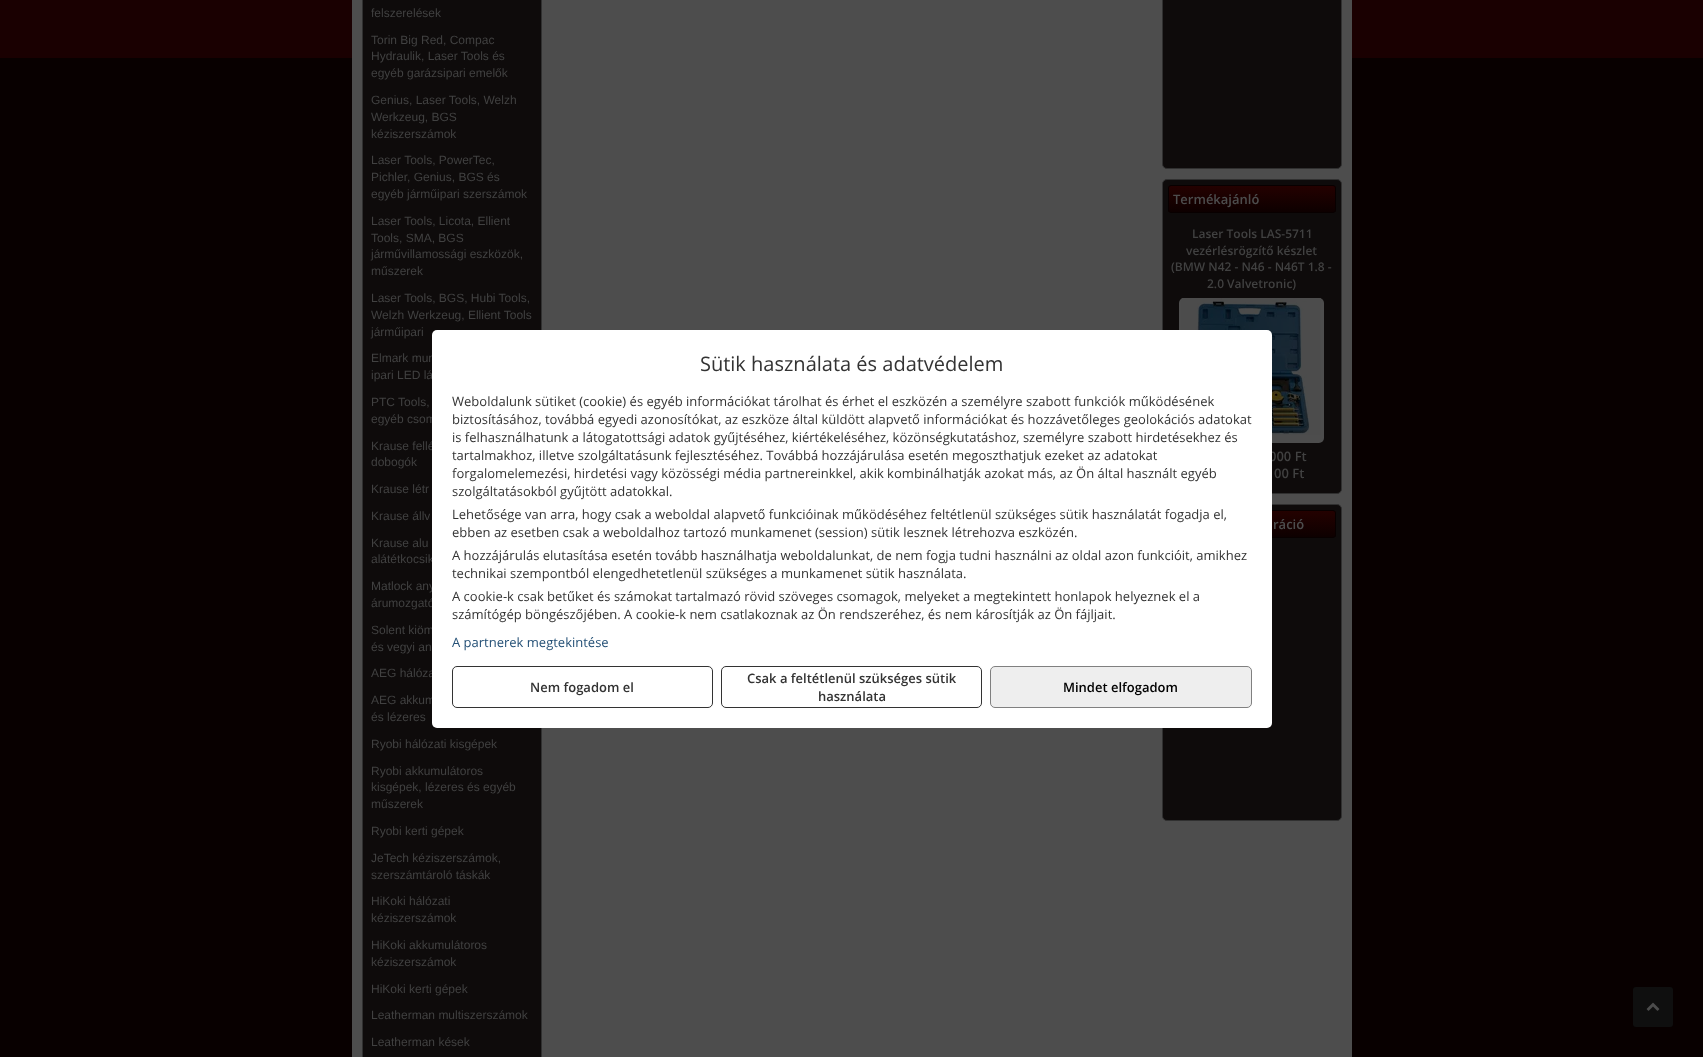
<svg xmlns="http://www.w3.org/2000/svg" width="1703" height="1057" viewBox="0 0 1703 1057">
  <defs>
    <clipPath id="clip1"><rect x="1168" y="185" width="168" height="28" rx="3"/></clipPath>
    <linearGradient id="g1" gradientUnits="userSpaceOnUse" x1="1252" y1="186" x2="1252" y2="212"><stop offset="0" stop-color="#240100"/><stop offset="1" stop-color="#0d0000"/></linearGradient>
    <clipPath id="clip2"><rect x="1168" y="510" width="168" height="28" rx="3"/></clipPath>
    <linearGradient id="g2" gradientUnits="userSpaceOnUse" x1="1252" y1="511" x2="1252" y2="537"><stop offset="0" stop-color="#240100"/><stop offset="1" stop-color="#0d0000"/></linearGradient>
  </defs>
  <rect width="100%" height="100%" fill="#080000"/>
  <path d="M0 0h1703v58H0z" fill="#1a0001"/>
  <path d="M352 0h1000v1057H352z" fill="#4d4d4d"/>
  <path d="M362.5 -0.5h179v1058H362.5z" fill="#0e0b0b" stroke="#303030"/>
  <rect x="1162.5" y="-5.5" width="179" height="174" rx="4.5" fill="#0e0b0b" stroke="#303030"/>
  <rect x="1162.5" y="179.5" width="179" height="314" rx="4.5" fill="#0e0b0b" stroke="#303030"/>
  <g clip-path="url(#clip1)">
    <path d="M1168 186h168v26H1168z" fill="url(#g1)"/>
  </g>
  <rect x="1168.5" y="185.5" width="167" height="27" rx="2.5" fill="none" stroke="#080000"/>
  <rect x="1179" y="298" width="145" height="145" rx="5" fill="#4d4d4d"/>
  <image x="1181" y="298" width="140" height="137" href="img/1.png"/>
  <rect x="1162.5" y="504.5" width="179" height="316" rx="4.5" fill="#0e0b0b" stroke="#303030"/>
  <g clip-path="url(#clip2)">
    <path d="M1272 511h64v26H1272z" fill="url(#g2)"/>
  </g>
  <rect x="1168.5" y="510.5" width="167" height="27" rx="2.5" fill="none" stroke="#080000"/>
  <rect x="1633" y="987" width="40" height="40" rx="3" fill="#0f0f0f"/>
  <image x="1646" y="1002" width="14" height="9" href="img/2.png"/>
  <g font-family="Liberation Sans" font-size="12" fill="#414141">
    <text x="371" y="17">felszerelések</text>
    <text x="371" y="44">Torin Big Red, Compac</text>
    <text x="371" y="60">Hydraulik, Laser Tools és</text>
    <text x="371" y="77">egyéb garázsipari emelők</text>
    <text x="371" y="104">Genius, Laser Tools, Welzh</text>
    <text x="371" y="121">Werkzeug, BGS</text>
    <text x="371" y="138">kéziszerszámok</text>
    <text x="371" y="164">Laser Tools, PowerTec,</text>
    <text x="371" y="181">Pichler, Genius, BGS és</text>
    <text x="371" y="198">egyéb járműipari szerszámok</text>
    <text x="371" y="225">Laser Tools, Licota, Ellient</text>
    <text x="371" y="242">Tools, SMA, BGS</text>
    <text x="371" y="258">járművillamossági eszközök,</text>
    <text x="371" y="275">műszerek</text>
    <text x="371" y="302">Laser Tools, BGS, Hubi Tools,</text>
    <text x="371" y="319">Welzh Werkzeug, Ellient Tools</text>
    <text x="371" y="336">járműipari</text>
    <text x="371" y="362">Elmark mun</text>
    <text x="371" y="379">ipari LED lá</text>
    <text x="371" y="406">PTC Tools,</text>
    <text x="371" y="423">egyéb csom</text>
    <text x="371" y="450">Krause fellé</text>
    <text x="371" y="466">dobogók</text>
    <text x="371" y="493">Krause létr</text>
    <text x="371" y="520">Krause állv</text>
    <text x="371" y="547">Krause alu</text>
    <text x="371" y="563">alátétkocsik</text>
    <text x="371" y="590">Matlock any</text>
    <text x="371" y="607">árumozgató</text>
    <text x="371" y="634">Solent kiöm</text>
    <text x="371" y="651">és vegyi an</text>
    <text x="371" y="677">AEG hálóza</text>
    <text x="371" y="704">AEG akkum</text>
    <text x="371" y="721">és lézeres</text>
    <text x="371" y="748">Ryobi hálózati kisgépek</text>
    <text x="371" y="775">Ryobi akkumulátoros</text>
    <text x="371" y="791">kisgépek, lézeres és egyéb</text>
    <text x="371" y="808">műszerek</text>
    <text x="371" y="835">Ryobi kerti gépek</text>
    <text x="371" y="862">JeTech kéziszerszámok,</text>
    <text x="371" y="879">szerszámtároló táskák</text>
    <text x="371" y="905">HiKoki hálózati</text>
    <text x="371" y="922">kéziszerszámok</text>
    <text x="371" y="949">HiKoki akkumulátoros</text>
    <text x="371" y="966">kéziszerszámok</text>
    <text x="371" y="993">HiKoki kerti gépek</text>
    <text x="371" y="1019">Leatherman multiszerszámok</text>
    <text x="371" y="1046">Leatherman kések</text>
  </g>
  <text x="1173" y="204" font-family="Open Sans" font-size="13" font-weight="600" fill="#4d4d4d">Termékajánló</text>
  <g font-family="Open Sans" font-size="12" font-weight="600" fill="#414141">
    <text x="1192" y="238">Laser Tools LAS-5711</text>
    <text x="1186" y="255">vezérlésrögzítő készlet</text>
    <text x="1171" y="271">(BMW N42 - N46 - N46T 1.8 -</text>
    <text x="1207" y="288">2.0 Valvetronic)</text>
  </g>
  <g font-family="Open Sans" font-size="13" font-weight="600" fill="#414141">
    <text x="1269" y="461">000 Ft</text>
    <text x="1274" y="478">00 Ft</text>
  </g>
  <text x="1273" y="529" font-family="Open Sans" font-size="13" font-weight="600" fill="#4d4d4d">ráció</text>
  <rect x="432" y="330" width="840" height="398" rx="5" fill="#fff"/>
  <text x="700" y="371" font-family="Open Sans" font-size="20" fill="#333">Sütik használata és adatvédelem</text>
  <g font-family="Open Sans" font-size="13" fill="#333">
    <text x="452" y="406">Weboldalunk sütiket (cookie) és egyéb információkat tárolhat és érhet el eszközén a személyre szabott funkciók működésének</text>
    <text x="452" y="424">biztosításához, továbbá egyedi azonosítókat, az eszköze által küldött alapvető információkat és hozzávetőleges geolokációs adatokat</text>
    <text x="452" y="442">is felhasználhatunk a látogatottsági adatok gyűjtéséhez, kiértékeléséhez, közönségkutatáshoz, személyre szabott hirdetésekhez és</text>
    <text x="452" y="460">tartalmakhoz, illetve szolgáltatásunk fejlesztéséhez. Továbbá hozzájárulása esetén megoszthatjuk ezeket az adatokat</text>
    <text x="452" y="478">forgalomelemezési, hirdetési vagy közösségi média partnereinkkel, akik kombinálhatják azokat más, az Ön által használt egyéb</text>
    <text x="452" y="496">szolgáltatásokból gyűjtött adatokkal.</text>
    <text x="452" y="519">Lehetősége van arra, hogy csak a weboldal alapvető funkcióinak működéséhez feltétlenül szükséges sütik használatát fogadja el,</text>
    <text x="452" y="537">ebben az esetben csak a weboldalhoz tartozó munkamenet (session) sütik lesznek létrehozva eszközén.</text>
    <text x="452" y="560">A hozzájárulás elutasítása esetén tovább használhatja weboldalunkat, de nem fogja tudni használni az oldal azon funkcióit, amikhez</text>
    <text x="452" y="578">technikai szempontból elengedhetetlenül szükséges a munkamenet sütik használata.</text>
    <text x="452" y="601">A cookie-k csak betűket és számokat tartalmazó rövid szöveges csomagok, melyeket a megtekintett honlapok helyeznek el a</text>
    <text x="452" y="619">számítógép böngészőjében. A cookie-k nem csatlakoznak az Ön rendszeréhez, és nem károsítják az Ön fájljait.</text>
  </g>
  <text x="452" y="647" font-family="Open Sans" font-size="13" fill="#245076">A partnerek megtekintése</text>
  <rect x="452.5" y="666.5" width="260" height="41" rx="4.5" fill="none" stroke="#333"/>
  <text x="530" y="692" font-family="Open Sans" font-size="13" font-weight="600" fill="#333">Nem fogadom el</text>
  <rect x="721.5" y="666.5" width="260" height="41" rx="4.5" fill="none" stroke="#333"/>
  <g font-family="Open Sans" font-size="13" font-weight="600" fill="#333">
    <text x="747" y="683">Csak a feltétlenül szükséges sütik</text>
    <text x="818" y="701">használata</text>
  </g>
  <rect x="990.5" y="666.5" width="261" height="41" rx="4.5" fill="#eee" stroke="#808080"/>
  <text x="1063" y="692" font-family="Open Sans" font-size="13" font-weight="600" fill="#000">Mindet elfogadom</text>
</svg>
